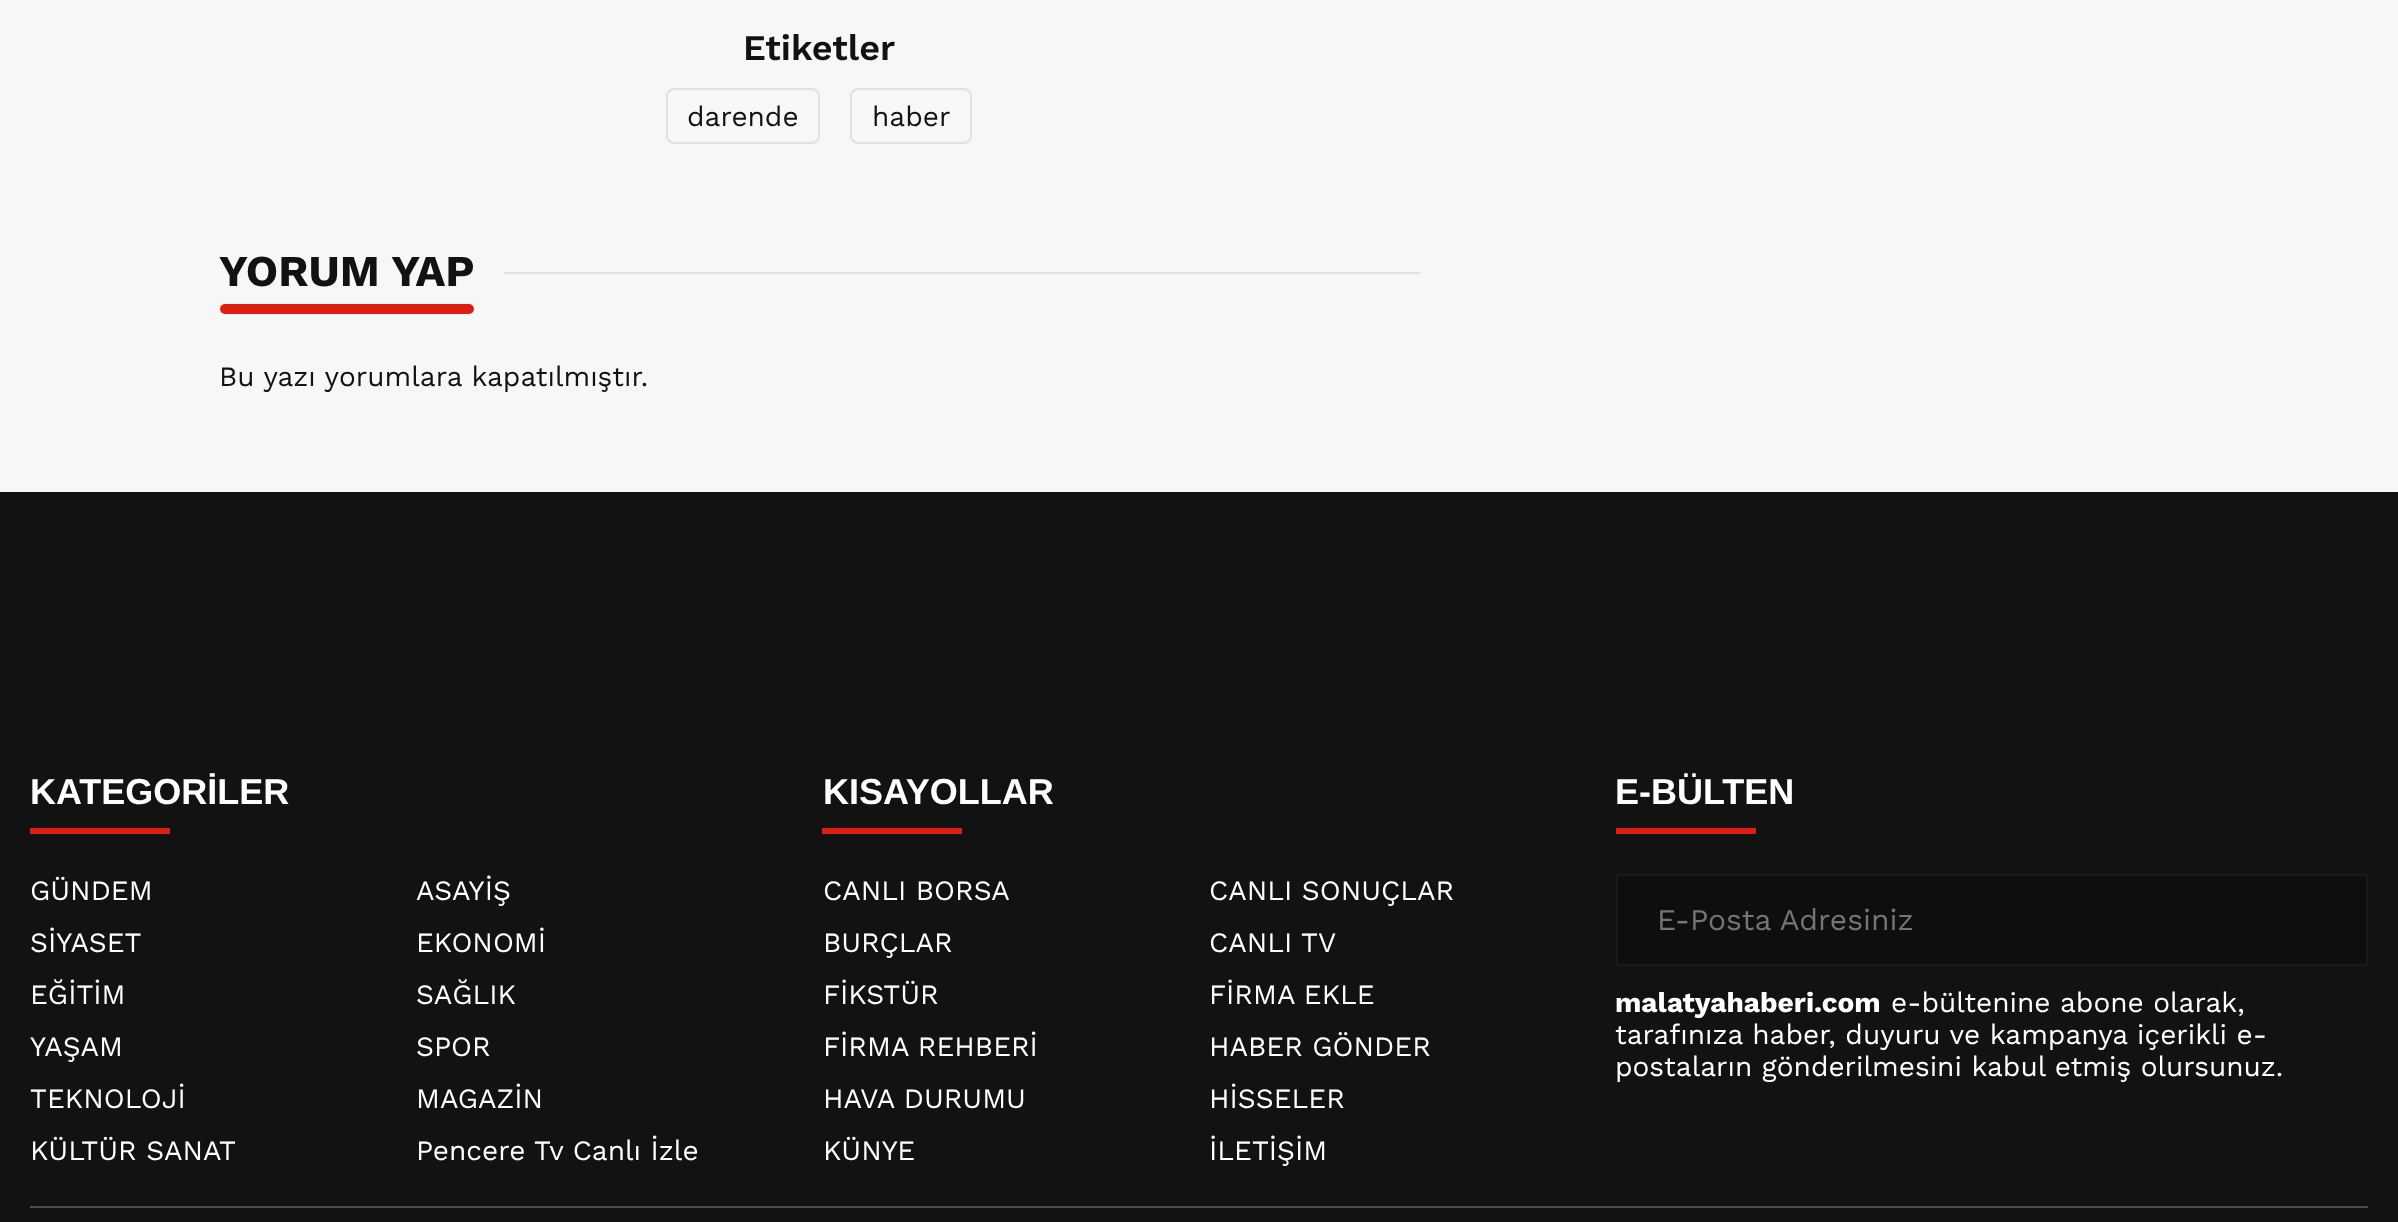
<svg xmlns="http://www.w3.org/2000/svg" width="2398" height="1222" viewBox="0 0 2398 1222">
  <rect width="100%" height="100%" fill="#f7f7f7"/>
  <rect x="667" y="89" width="152" height="54" rx="7" fill="none" stroke="#e1e1e1" stroke-width="2"/>
  <rect x="851" y="89" width="120" height="54" rx="7" fill="none" stroke="#e1e1e1" stroke-width="2"/>
  <rect x="220" y="304" width="254" height="10" rx="5" fill="#de1e12"/>
  <path d="M504 272h916v2H504z" fill="#e1e1e1"/>
  <path d="M0 492h2398v730H0z" fill="#121212"/>
  <path d="M30 828h140v6H30z" fill="#de1e12"/>
  <path d="M822 828h140v6H822z" fill="#de1e12"/>
  <path d="M1616 828h140v6H1616z" fill="#de1e12"/>
  <path d="M1616 874h752v92H1616z" fill="#0e0e0e"/>
  <path d="M2276 874H2368L2366 876H2276Z" fill="#1a1a1a"/>
  <path d="M2368 874V966L2366 964V876Z" fill="#ffffff0d"/>
  <path d="M2368 966H2276V964H2366Z" fill="#ffffff0d"/>
  <path d="M1616 874H2276V876H1618Z" fill="#1a1a1a"/>
  <path d="M2276 966H1616L1618 964H2276Z" fill="#1a1a1a"/>
  <path d="M1616 966V874L1618 876V964Z" fill="#ffffff0d"/>
  <path d="M30 1206h2338v2H30z" fill="#4d4d4d"/>
  <text x="743" y="60" font-family="Work Sans" font-size="36" font-weight="600" fill="#121212">Etiketler</text>
  <g font-family="Work Sans" font-size="28" fill="#121212">
    <text x="687" y="126">darende</text>
    <text x="872" y="126">haber</text>
  </g>
  <text x="219" y="286" font-family="Work Sans" font-size="44" font-weight="bold" fill="#121212">YORUM YAP</text>
  <text x="219" y="386" font-family="Work Sans" font-size="28" fill="#121212">Bu yazı yorumlara kapatılmıştır.</text>
  <text x="30" y="804" font-family="Liberation Sans" font-size="36" font-weight="bold" fill="#fff">KATEGORİLER</text>
  <g font-family="Work Sans" font-size="28" fill="#fff">
    <text x="30" y="900">GÜNDEM</text>
    <text x="416" y="900">ASAYİŞ</text>
    <text x="30" y="952">SİYASET</text>
    <text x="416" y="952">EKONOMİ</text>
    <text x="30" y="1004">EĞİTİM</text>
    <text x="416" y="1004">SAĞLIK</text>
    <text x="30" y="1056">YAŞAM</text>
    <text x="416" y="1056">SPOR</text>
    <text x="30" y="1108">TEKNOLOJİ</text>
    <text x="416" y="1108">MAGAZİN</text>
    <text x="30" y="1160">KÜLTÜR SANAT</text>
    <text x="416" y="1160">Pencere Tv Canlı İzle</text>
  </g>
  <text x="823" y="804" font-family="Liberation Sans" font-size="36" font-weight="bold" fill="#fff">KISAYOLLAR</text>
  <g font-family="Work Sans" font-size="28" fill="#fff">
    <text x="823" y="900">CANLI BORSA</text>
    <text x="1209" y="900">CANLI SONUÇLAR</text>
    <text x="823" y="952">BURÇLAR</text>
    <text x="1209" y="952">CANLI TV</text>
    <text x="823" y="1004">FİKSTÜR</text>
    <text x="1209" y="1004">FİRMA EKLE</text>
    <text x="823" y="1056">FİRMA REHBERİ</text>
    <text x="1209" y="1056">HABER GÖNDER</text>
    <text x="823" y="1108">HAVA DURUMU</text>
    <text x="1209" y="1108">HİSSELER</text>
    <text x="823" y="1160">KÜNYE</text>
    <text x="1209" y="1160">İLETİŞİM</text>
  </g>
  <text x="1615" y="804" font-family="Liberation Sans" font-size="36" font-weight="bold" fill="#fff">E-BÜLTEN</text>
  <text x="1657" y="930" font-family="Work Sans" font-size="30" fill="#757575">E-Posta Adresiniz</text>
  <text x="1615" y="1012" font-family="Work Sans" font-size="28" font-weight="bold" fill="#fff">malatyahaberi.com</text>
  <g font-family="Work Sans" font-size="28" fill="#fff">
    <text x="1891" y="1012">e-bültenine abone olarak,</text>
    <text x="1615" y="1044">tarafınıza haber, duyuru ve kampanya içerikli e-</text>
    <text x="1615" y="1076">postaların gönderilmesini kabul etmiş olursunuz.</text>
  </g>
</svg>
